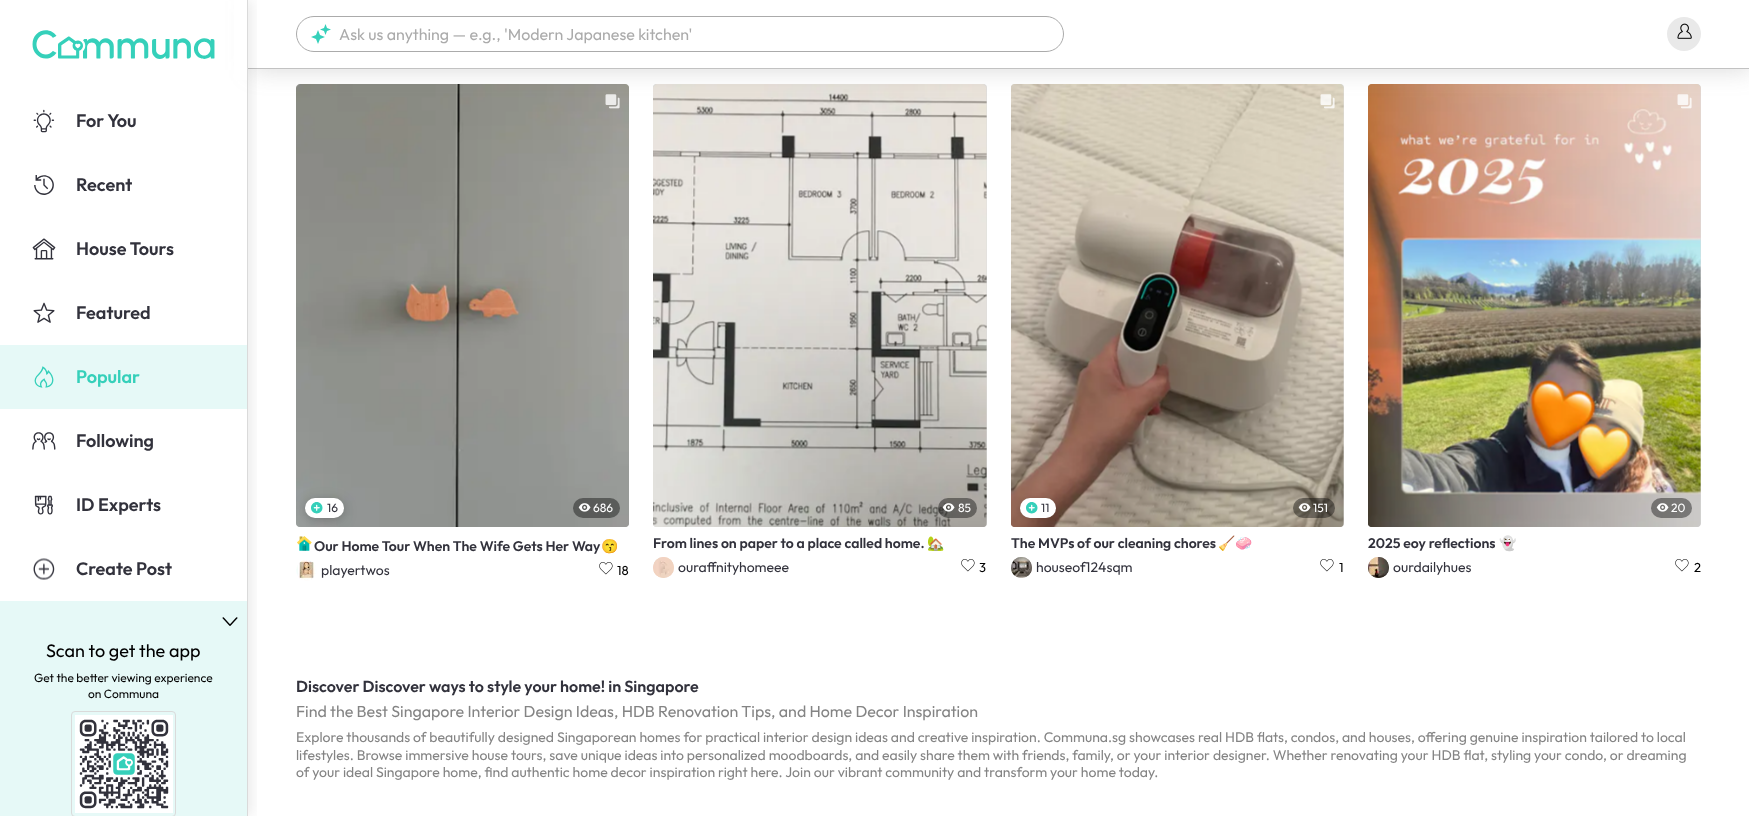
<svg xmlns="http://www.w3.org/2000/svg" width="1749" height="816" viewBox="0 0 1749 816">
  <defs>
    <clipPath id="clip1"><rect x="1368" y="84" width="333" height="443" rx="4"/></clipPath>
    <clipPath id="clip2"><path d="M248 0h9v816H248z"/></clipPath>
    <clipPath id="clip3"><rect x="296" y="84" width="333" height="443" rx="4"/></clipPath>
  </defs>
  <rect width="100%" height="100%" fill="#fff"/>
  <image x="296" y="84" width="333" height="443" href="img/14.png"/>
  <image x="296" y="84" width="333" height="443" href="img/15.png"/>
  <image x="605" y="94" width="15" height="15" href="img/16.png"/>
  <rect x="653" y="84" width="334" height="443" rx="4" fill="#ddd"/>
  <rect x="653" y="84" width="333" height="443" rx="4" fill="#ddd"/>
  <image x="653" y="84" width="334" height="443" href="img/23.png"/>
  <image x="653" y="101" width="334" height="426" href="img/24.png"/>
  <rect x="1011" y="84" width="333" height="443" rx="4" fill="#ddd"/>
  <image x="1011" y="84" width="333" height="443" href="img/28.png"/>
  <image x="1011" y="84" width="333" height="443" href="img/29.png"/>
  <image x="1320" y="94" width="15" height="15" href="img/30.png"/>
  <g clip-path="url(#clip1)">
    <rect x="1367" y="84" width="334" height="443" rx="4" fill="#ddd"/>
  </g>
  <image x="1368" y="84" width="333" height="443" href="img/35.png"/>
  <image x="1368" y="84" width="333" height="443" href="img/36.png"/>
  <image x="1677" y="94" width="15" height="15" href="img/37.png"/>
  <path d="M251 1h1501v69H251z" fill="#6868683d" filter="blur(12px)"/>
  <path d="M234 0h13v80H234z" fill="#fff"/>
  <path d="M248 0h1501v68H248z" fill="#fff"/>
  <path d="M248 68h1501v1H248z" fill="#c2c2c2"/>
  <g clip-path="url(#clip2)">
    <path d="M4 0h248v816H4z" fill="#00000014" filter="blur(7px)"/>
  </g>
  <path d="M247 0h1v816H247z" fill="#dadada"/>
  <image x="32" y="30" width="183" height="29" href="img/1.png"/>
  <image x="33" y="109" width="22" height="24" href="img/2.png"/>
  <image x="34" y="175" width="20" height="20" href="img/3.png"/>
  <image x="32" y="238" width="24" height="22" href="img/4.png"/>
  <image x="33" y="302" width="22" height="21" href="img/5.png"/>
  <path d="M0 345h247v64H0z" fill="#e6f9f7"/>
  <image x="34" y="366" width="20" height="22" href="img/6.png"/>
  <image x="32" y="432" width="24" height="18" href="img/7.png"/>
  <image x="34" y="495" width="19" height="20" href="img/8.png"/>
  <image x="33" y="558" width="22" height="22" href="img/9.png"/>
  <path d="M0 601h247v215H0z" fill="#e6f9f7"/>
  <image x="222" y="617" width="16" height="9" href="img/10.png"/>
  <rect x="71.5" y="711.5" width="104" height="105" rx="3.5" fill="none" stroke="#dadada"/>
  <image x="75" y="715" width="98" height="98" href="img/11.png"/>
  <image x="311" y="24" width="20" height="20" href="img/12.png"/>
  <rect x="296.5" y="16.5" width="767" height="35" rx="17.5" fill="none" stroke="#ababab"/>
  <circle cx="1684" cy="34" r="17" fill="#e9e9e9"/>
  <image x="1677" y="23" width="15" height="16" href="img/13.png"/>
  <rect x="305" y="499" width="39" height="20" rx="10" fill="#0000001f" filter="blur(3px)"/>
  <image x="297" y="536" width="15" height="15" href="img/19.png"/>
  <g clip-path="url(#clip3)">
    <rect x="305" y="502" width="39" height="20" rx="10" fill="#0000001a" filter="blur(8px)"/>
  </g>
  <rect x="305" y="498" width="39" height="20" rx="10" fill="#fff"/>
  <image x="311" y="502" width="12" height="12" href="img/17.png"/>
  <rect x="573" y="498" width="47" height="20" rx="10" fill="#00000066"/>
  <image x="578" y="503" width="13" height="9" href="img/18.png"/>
  <image x="296" y="560" width="21" height="21" href="img/20.png"/>
  <image x="296" y="560" width="21" height="21" href="img/21.png"/>
  <image x="599" y="562" width="14" height="13" href="img/22.png"/>
  <rect x="938" y="498" width="39" height="20" rx="10" fill="#00000066"/>
  <image x="942" y="503" width="13" height="9" href="img/25.png"/>
  <image x="653" y="557" width="21" height="21" href="img/26.png"/>
  <image x="653" y="557" width="21" height="21" href="img/27.png"/>
  <image x="961" y="559" width="14" height="13" href="img/22.png"/>
  <rect x="1020" y="499" width="36" height="20" rx="10" fill="#0000001f" filter="blur(3px)"/>
  <rect x="1020" y="498" width="36" height="20" rx="10" fill="#fff"/>
  <image x="1026" y="502" width="12" height="12" href="img/31.png"/>
  <rect x="1293" y="498" width="42" height="20" rx="10" fill="#00000066"/>
  <image x="1298" y="503" width="13" height="9" href="img/32.png"/>
  <image x="1011" y="557" width="21" height="21" href="img/33.png"/>
  <image x="1011" y="557" width="21" height="21" href="img/34.png"/>
  <image x="1320" y="559" width="14" height="13" href="img/22.png"/>
  <rect x="1651" y="498" width="41" height="20" rx="10" fill="#00000066"/>
  <image x="1656" y="503" width="13" height="9" href="img/38.png"/>
  <image x="1368" y="557" width="21" height="21" href="img/39.png"/>
  <image x="1368" y="557" width="21" height="21" href="img/40.png"/>
  <image x="1675" y="559" width="14" height="13" href="img/22.png"/>
  <g font-family="Outfit" font-size="18" font-weight="100" fill="#32323c">
    <text x="76" y="127">For You</text>
    <text x="76" y="191">Recent</text>
    <text x="76" y="255">House Tours</text>
    <text x="76" y="319">Featured</text>
  </g>
  <text x="76" y="383" font-family="Outfit" font-size="18" font-weight="100" fill="#35d0ba">Popular</text>
  <g font-family="Outfit" font-size="18" font-weight="100" fill="#32323c">
    <text x="76" y="447">Following</text>
    <text x="76" y="511">ID Experts</text>
    <text x="76" y="575">Create Post</text>
  </g>
  <text x="46" y="657" font-family="'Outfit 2'" font-size="18" font-weight="100" fill="#000">Scan to get the app</text>
  <g font-family="'Outfit 2'" font-size="12" font-weight="100" fill="#000">
    <text x="34" y="682">Get the better viewing experience</text>
    <text x="88" y="698">on Communa</text>
  </g>
  <text x="339" y="40" font-family="'Outfit 2'" font-size="16" font-weight="100" fill="#ababab">Ask us anything — e.g., 'Modern Japanese kitchen'</text>
  <text x="327" y="512" font-family="'Outfit 2'" font-size="12" font-weight="100" fill="#32323c">16</text>
  <text x="593" y="512" font-family="'Outfit 2'" font-size="12" font-weight="100" fill="#fff">686</text>
  <text x="314" y="551" font-family="Outfit" font-size="14" font-weight="100" fill="#32323c">Our Home Tour When The Wife Gets Her Way</text>
  <text x="601" y="551" font-family="Noto Color Emoji" font-size="14" font-weight="bold" fill="#32323c">😙</text>
  <text x="321" y="575" font-family="'Outfit 2'" font-size="14" font-weight="100" fill="#32323c">playertwos</text>
  <text x="617" y="575" font-family="'Outfit 2'" font-size="13" font-weight="100" fill="#000">18</text>
  <text x="958" y="512" font-family="'Outfit 2'" font-size="12" font-weight="100" fill="#fff">85</text>
  <text x="653" y="548" font-family="Outfit" font-size="14" font-weight="100" fill="#32323c">From lines on paper to a place called home.</text>
  <text x="927" y="548" font-family="Noto Color Emoji" font-size="14" font-weight="bold" fill="#32323c">🏡</text>
  <text x="678" y="572" font-family="'Outfit 2'" font-size="14" font-weight="100" fill="#32323c">ouraffnityhomeee</text>
  <text x="979" y="572" font-family="'Outfit 2'" font-size="13" font-weight="100" fill="#000">3</text>
  <text x="1041" y="512" font-family="'Outfit 2'" font-size="12" font-weight="100" fill="#32323c">11</text>
  <text x="1313" y="512" font-family="'Outfit 2'" font-size="12" font-weight="100" fill="#fff">151</text>
  <text x="1011" y="548" font-family="Outfit" font-size="14" font-weight="100" fill="#32323c">The MVPs of our cleaning chores</text>
  <text x="1218" y="548" font-family="Noto Color Emoji" font-size="14" font-weight="bold" fill="#32323c">🧹🧼</text>
  <text x="1036" y="572" font-family="'Outfit 2'" font-size="14" font-weight="100" fill="#32323c">houseof124sqm</text>
  <text x="1339" y="572" font-family="'Outfit 2'" font-size="13" font-weight="100" fill="#000">1</text>
  <text x="1671" y="512" font-family="'Outfit 2'" font-size="12" font-weight="100" fill="#fff">20</text>
  <text x="1368" y="548" font-family="Outfit" font-size="14" font-weight="100" fill="#32323c">2025 eoy reflections</text>
  <text x="1499" y="548" font-family="Noto Color Emoji" font-size="14" font-weight="bold" fill="#32323c">👻</text>
  <text x="1393" y="572" font-family="'Outfit 2'" font-size="14" font-weight="100" fill="#32323c">ourdailyhues</text>
  <text x="1694" y="572" font-family="'Outfit 2'" font-size="13" font-weight="100" fill="#000">2</text>
  <text x="296" y="692" font-family="Outfit" font-size="16" font-weight="100" fill="#32323c">Discover Discover ways to style your home! in Singapore</text>
  <text x="296" y="717" font-family="'Outfit 2'" font-size="16" font-weight="100" fill="#848484">Find the Best Singapore Interior Design Ideas, HDB Renovation Tips, and Home Decor Inspiration</text>
  <g font-family="'Outfit 2'" font-size="14" font-weight="100" fill="#848484">
    <text x="296" y="742">Explore thousands of beautifully designed Singaporean homes for practical interior design ideas and creative inspiration. Communa.sg showcases real HDB flats, condos, and houses, offering genuine inspiration tailored to local</text>
    <text x="296" y="760">lifestyles. Browse immersive house tours, save unique ideas into personalized moodboards, and easily share them with friends, family, or your interior designer. Whether renovating your HDB flat, styling your condo, or dreaming</text>
    <text x="296" y="777">of your ideal Singapore home, find authentic home decor inspiration right here. Join our vibrant community and transform your home today.</text>
  </g>
</svg>
